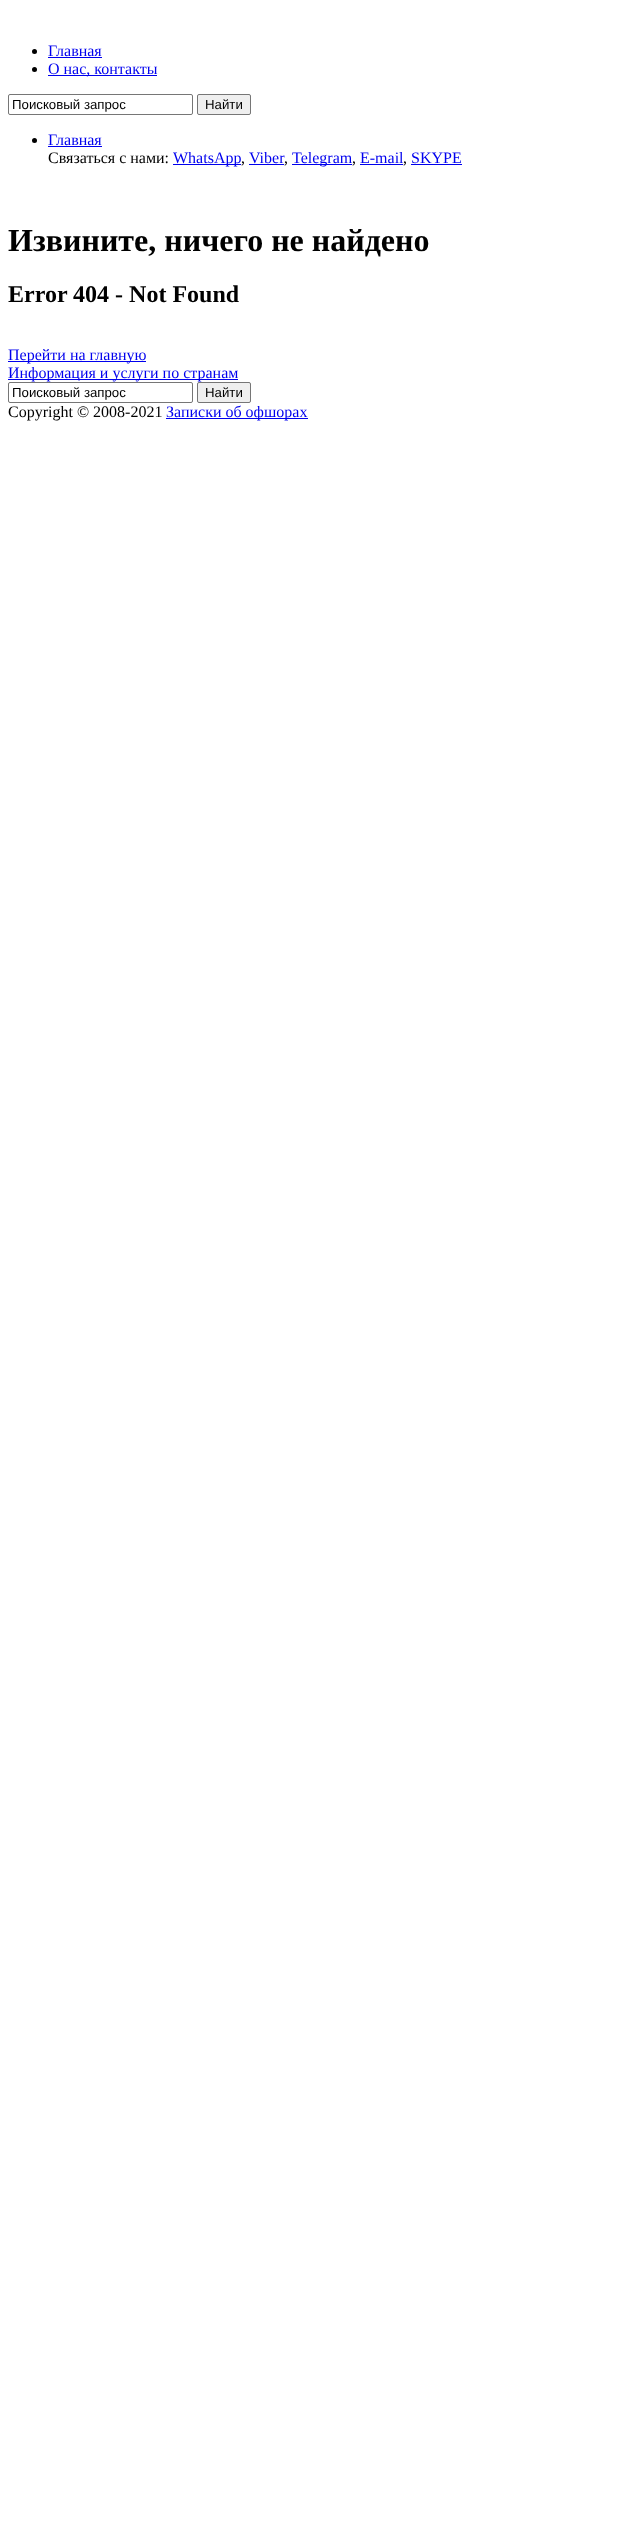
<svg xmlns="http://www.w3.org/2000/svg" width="625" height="2522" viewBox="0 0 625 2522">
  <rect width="100%" height="100%" fill="#fff"/>
  <circle cx="34.5" cy="51.5" r="2.5" fill="#000"/>
  <path d="M48 57h54v1H48z" fill="#00e"/>
  <circle cx="34.5" cy="69.5" r="2.5" fill="#000"/>
  <path d="M48 75h109v1H48z" fill="#00e"/>
  <rect x="8.5" y="94.5" width="184" height="20" rx="1.5" fill="none" stroke="#767676"/>
  <rect x="197.5" y="94.5" width="53" height="20" rx="1.5" fill="#efefef" stroke="#767676"/>
  <circle cx="34.5" cy="140.5" r="2.5" fill="#000"/>
  <path d="M48 146h54v1H48z" fill="#00e"/>
  <path d="M173 164h68v1H173z" fill="#00e"/>
  <path d="M249 164h35v1H249z" fill="#00e"/>
  <path d="M292 164h60v1H292z" fill="#00e"/>
  <path d="M360 164h43v1H360z" fill="#00e"/>
  <path d="M411 164h51v1H411z" fill="#00e"/>
  <path d="M8 361h138v1H8z" fill="#00e"/>
  <path d="M8 379h230v1H8z" fill="#00e"/>
  <rect x="8.5" y="382.5" width="184" height="20" rx="1.5" fill="none" stroke="#767676"/>
  <rect x="197.5" y="382.5" width="53" height="20" rx="1.5" fill="#efefef" stroke="#767676"/>
  <path d="M166 418h142v1H166z" fill="#00e"/>
  <g font-family="Liberation Serif" font-size="16" fill="#00e">
    <text x="48" y="56">Главная</text>
    <text x="48" y="74">О нас, контакты</text>
  </g>
  <g font-family="Liberation Sans" font-size="13.25" fill="#000">
    <text x="12" y="109">Поисковый запрос</text>
    <text x="205" y="109">Найти</text>
  </g>
  <text x="48" y="145" font-family="Liberation Serif" font-size="16" fill="#00e">Главная</text>
  <text x="48" y="163" font-family="Liberation Serif" font-size="16" fill="#000">Связаться с нами:</text>
  <text x="173" y="163" font-family="Liberation Serif" font-size="16" fill="#00e">WhatsApp</text>
  <text x="241" y="163" font-family="Liberation Serif" font-size="16" fill="#000">,</text>
  <text x="249" y="163" font-family="Liberation Serif" font-size="16" fill="#00e">Viber</text>
  <text x="284" y="163" font-family="Liberation Serif" font-size="16" fill="#000">,</text>
  <text x="292" y="163" font-family="Liberation Serif" font-size="16" fill="#00e">Telegram</text>
  <text x="352" y="163" font-family="Liberation Serif" font-size="16" fill="#000">,</text>
  <text x="360" y="163" font-family="Liberation Serif" font-size="16" fill="#00e">E-mail</text>
  <text x="403" y="163" font-family="Liberation Serif" font-size="16" fill="#000">,</text>
  <text x="411" y="163" font-family="Liberation Serif" font-size="16" fill="#00e">SKYPE</text>
  <text x="8" y="251" font-family="Liberation Serif" font-size="32" font-weight="bold" fill="#000">Извините, ничего не найдено</text>
  <text x="8" y="302" font-family="Liberation Serif" font-size="24" font-weight="bold" fill="#000">Error 404 - Not Found</text>
  <g font-family="Liberation Serif" font-size="16" fill="#00e">
    <text x="8" y="360">Перейти на главную</text>
    <text x="8" y="378">Информация и услуги по странам</text>
  </g>
  <g font-family="Liberation Sans" font-size="13.25" fill="#000">
    <text x="12" y="397">Поисковый запрос</text>
    <text x="205" y="397">Найти</text>
  </g>
  <text x="8" y="417" font-family="Liberation Serif" font-size="16" fill="#000">Copyright © 2008-2021</text>
  <text x="166" y="417" font-family="Liberation Serif" font-size="16" fill="#00e">Записки об офшорах</text>
</svg>
